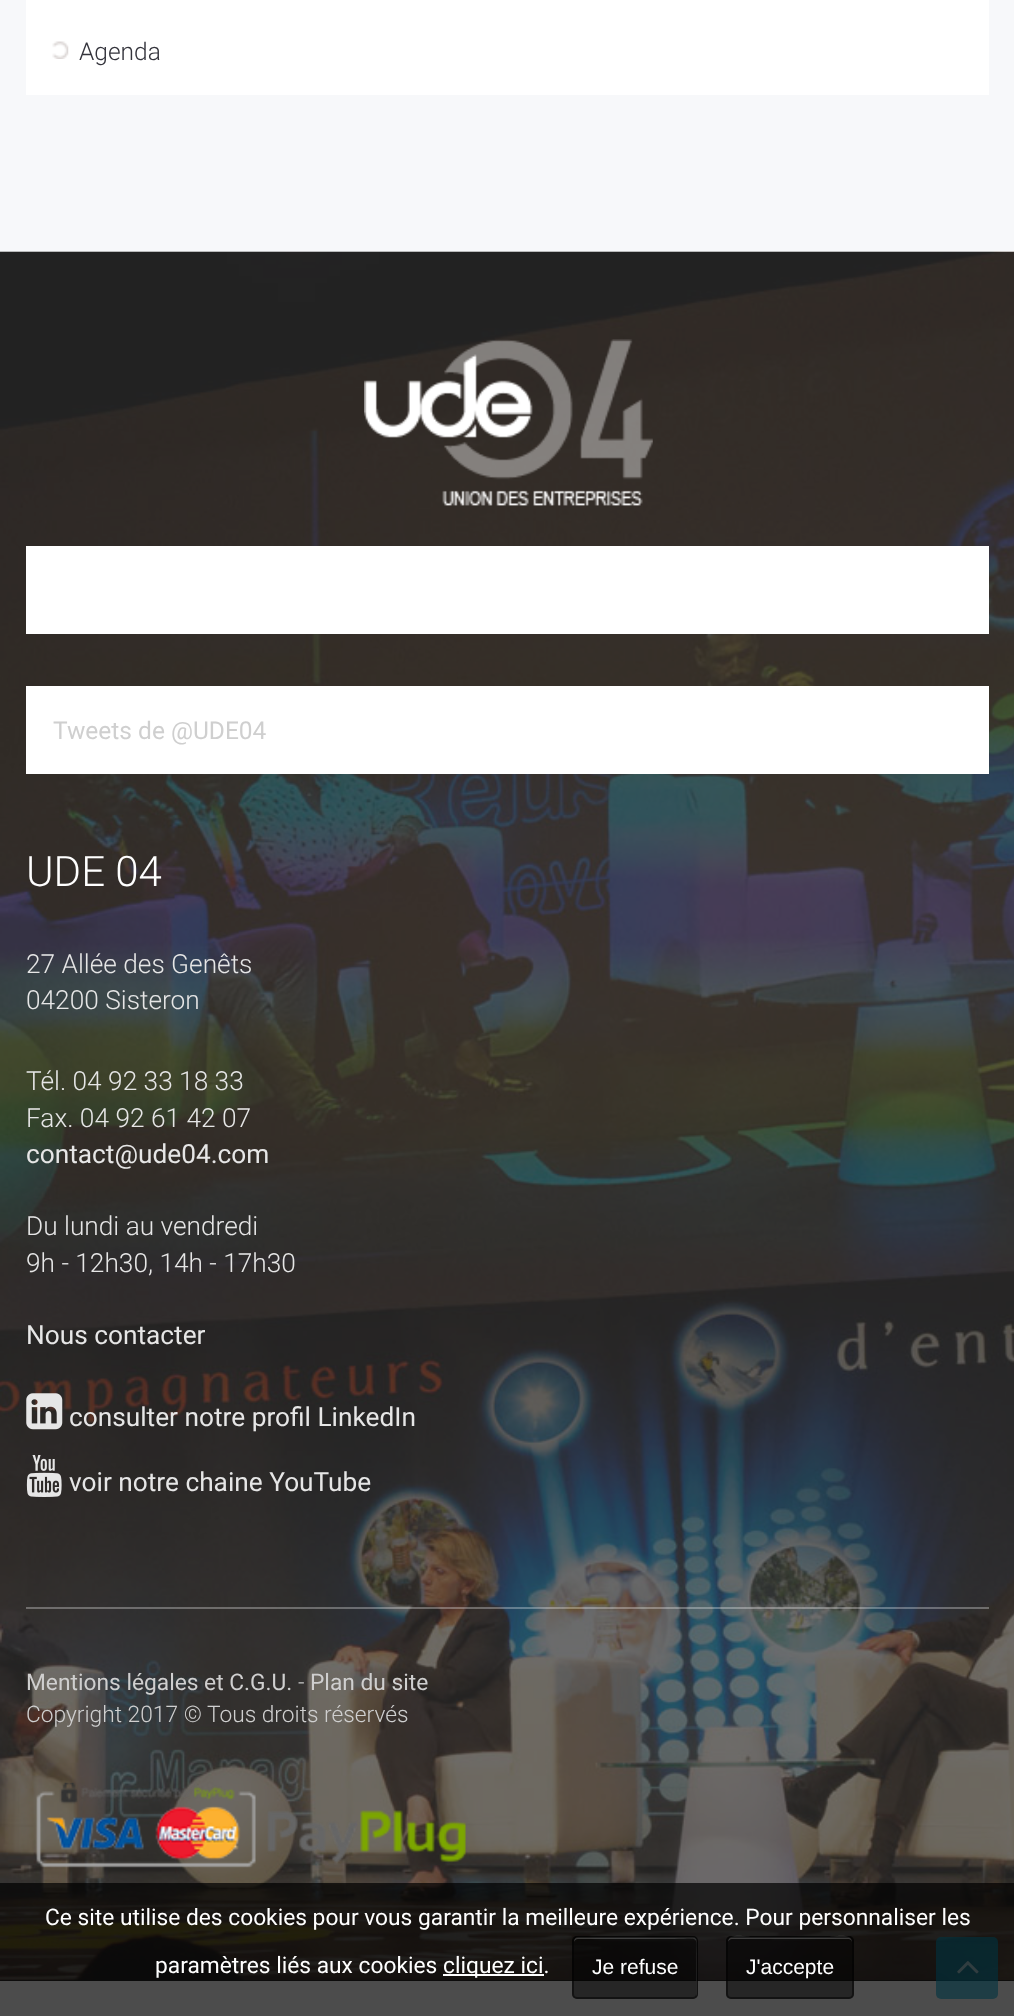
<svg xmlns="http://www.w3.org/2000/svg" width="1014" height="2016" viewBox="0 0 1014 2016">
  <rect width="100%" height="100%" fill="#fff"/>
  <path d="M0 0h1014v252H0z" fill="#f7f8fa"/>
  <path d="M26 0h963v95H26z" fill="#fff"/>
  <image x="52" y="41" width="17" height="18" href="img/1.png"/>
  <path d="M0 1980h1014v1H0z" fill="#222"/>
  <image x="0" y="251" width="1014" height="1730" href="img/2.png"/>
  <image x="364" y="339" width="289" height="167" href="img/3.png"/>
  <path d="M26 546h963v88H26z" fill="#fff"/>
  <path d="M26 686h963v88H26z" fill="#fff"/>
  <image x="26" y="1393" width="37" height="37" href="img/4.png"/>
  <image x="26" y="1455" width="36" height="42" href="img/5.png"/>
  <path d="M26 1607h963v2H26z" fill="#ffffff4d"/>
  <image x="36" y="1782" width="430" height="86" href="img/6.png"/>
  <rect x="936" y="1937" width="62" height="62" rx="5" fill="#00aad599"/>
  <image x="957" y="1961" width="22" height="13" href="img/7.png"/>
  <path d="M0 1883h1014v133H0z" fill="#000000b3"/>
  <path d="M443 1974h101v2H443z" fill="#fff"/>
  <rect x="572" y="1936" width="126" height="63" rx="5" fill="#00000080"/>
  <path d="M578 1939H674C701 1939 696 1934 696 1960V1996C697 1995 697 1994 697 1993V1941C697 1939 695 1937 693 1937H578C576 1937 574 1939 574 1941V1942C574 1941 576 1939 578 1939Z" fill="#ffffff33"/>
  <rect x="573" y="1937" width="124" height="61" rx="4" fill="none" stroke="#00000080" stroke-width="2"/>
  <rect x="726" y="1936" width="128" height="63" rx="5" fill="#00000080"/>
  <path d="M732 1939H849L851 1940L852 1942C852 1932 831 1937 829 1937H751C749 1937 728 1932 728 1942C728 1941 730 1939 732 1939Z" fill="#ffffff33"/>
  <rect x="727" y="1937" width="126" height="61" rx="4" fill="none" stroke="#00000080" stroke-width="2"/>
  <text x="79" y="60" font-family="Roboto" font-size="24.5" font-weight="300" fill="#34343c">Agenda</text>
  <text x="53" y="739" font-family="Roboto" font-size="24.5" fill="#cfcfcf">Tweets de @UDE04</text>
  <text x="26" y="886" font-family="Roboto" font-size="42" font-weight="300" fill="#fff">UDE 04</text>
  <g font-family="Roboto" font-size="26.25" font-weight="300" fill="#e6e6e6">
    <text x="26" y="973">27 Allée des Genêts</text>
    <text x="26" y="1009">04200 Sisteron</text>
    <text x="26" y="1090">Tél. 04 92 33 18 33</text>
    <text x="26" y="1127">Fax. 04 92 61 42 07</text>
  </g>
  <text x="26" y="1163" font-family="Roboto" font-size="26.25" fill="#e6e6e6">contact@ude04.com</text>
  <g font-family="Roboto" font-size="26.25" font-weight="300" fill="#e6e6e6">
    <text x="26" y="1235">Du lundi au vendredi</text>
    <text x="26" y="1272">9h - 12h30, 14h - 17h30</text>
  </g>
  <g font-family="Roboto" font-size="26.25" fill="#e6e6e6">
    <text x="26" y="1344">Nous contacter</text>
    <text x="69" y="1426">consulter notre profil LinkedIn</text>
    <text x="69" y="1491">voir notre chaine YouTube</text>
  </g>
  <text x="26" y="1690" font-family="Roboto" font-size="22.75" fill="#cfcfcf">Mentions légales et C.G.U.</text>
  <text x="298" y="1690" font-family="Roboto" font-size="22.75" font-weight="300" fill="#cfcfcf">-</text>
  <text x="310" y="1690" font-family="Roboto" font-size="22.75" fill="#cfcfcf">Plan du site</text>
  <text x="26" y="1722" font-family="Roboto" font-size="22.75" font-weight="300" fill="#cfcfcf">Copyright 2017 © Tous droits réservés</text>
  <g font-family="Roboto" font-size="22.75" fill="#fff">
    <text x="45" y="1925">Ce site utilise des cookies pour vous garantir la meilleure expérience. Pour personnaliser les</text>
    <text x="155" y="1973">paramètres liés aux cookies</text>
    <text x="443" y="1973">cliquez ici.</text>
  </g>
  <g font-family="Liberation Sans" font-size="21" fill="#fff">
    <text x="592" y="1974">Je refuse</text>
    <text x="746" y="1974">J'accepte</text>
  </g>
</svg>
